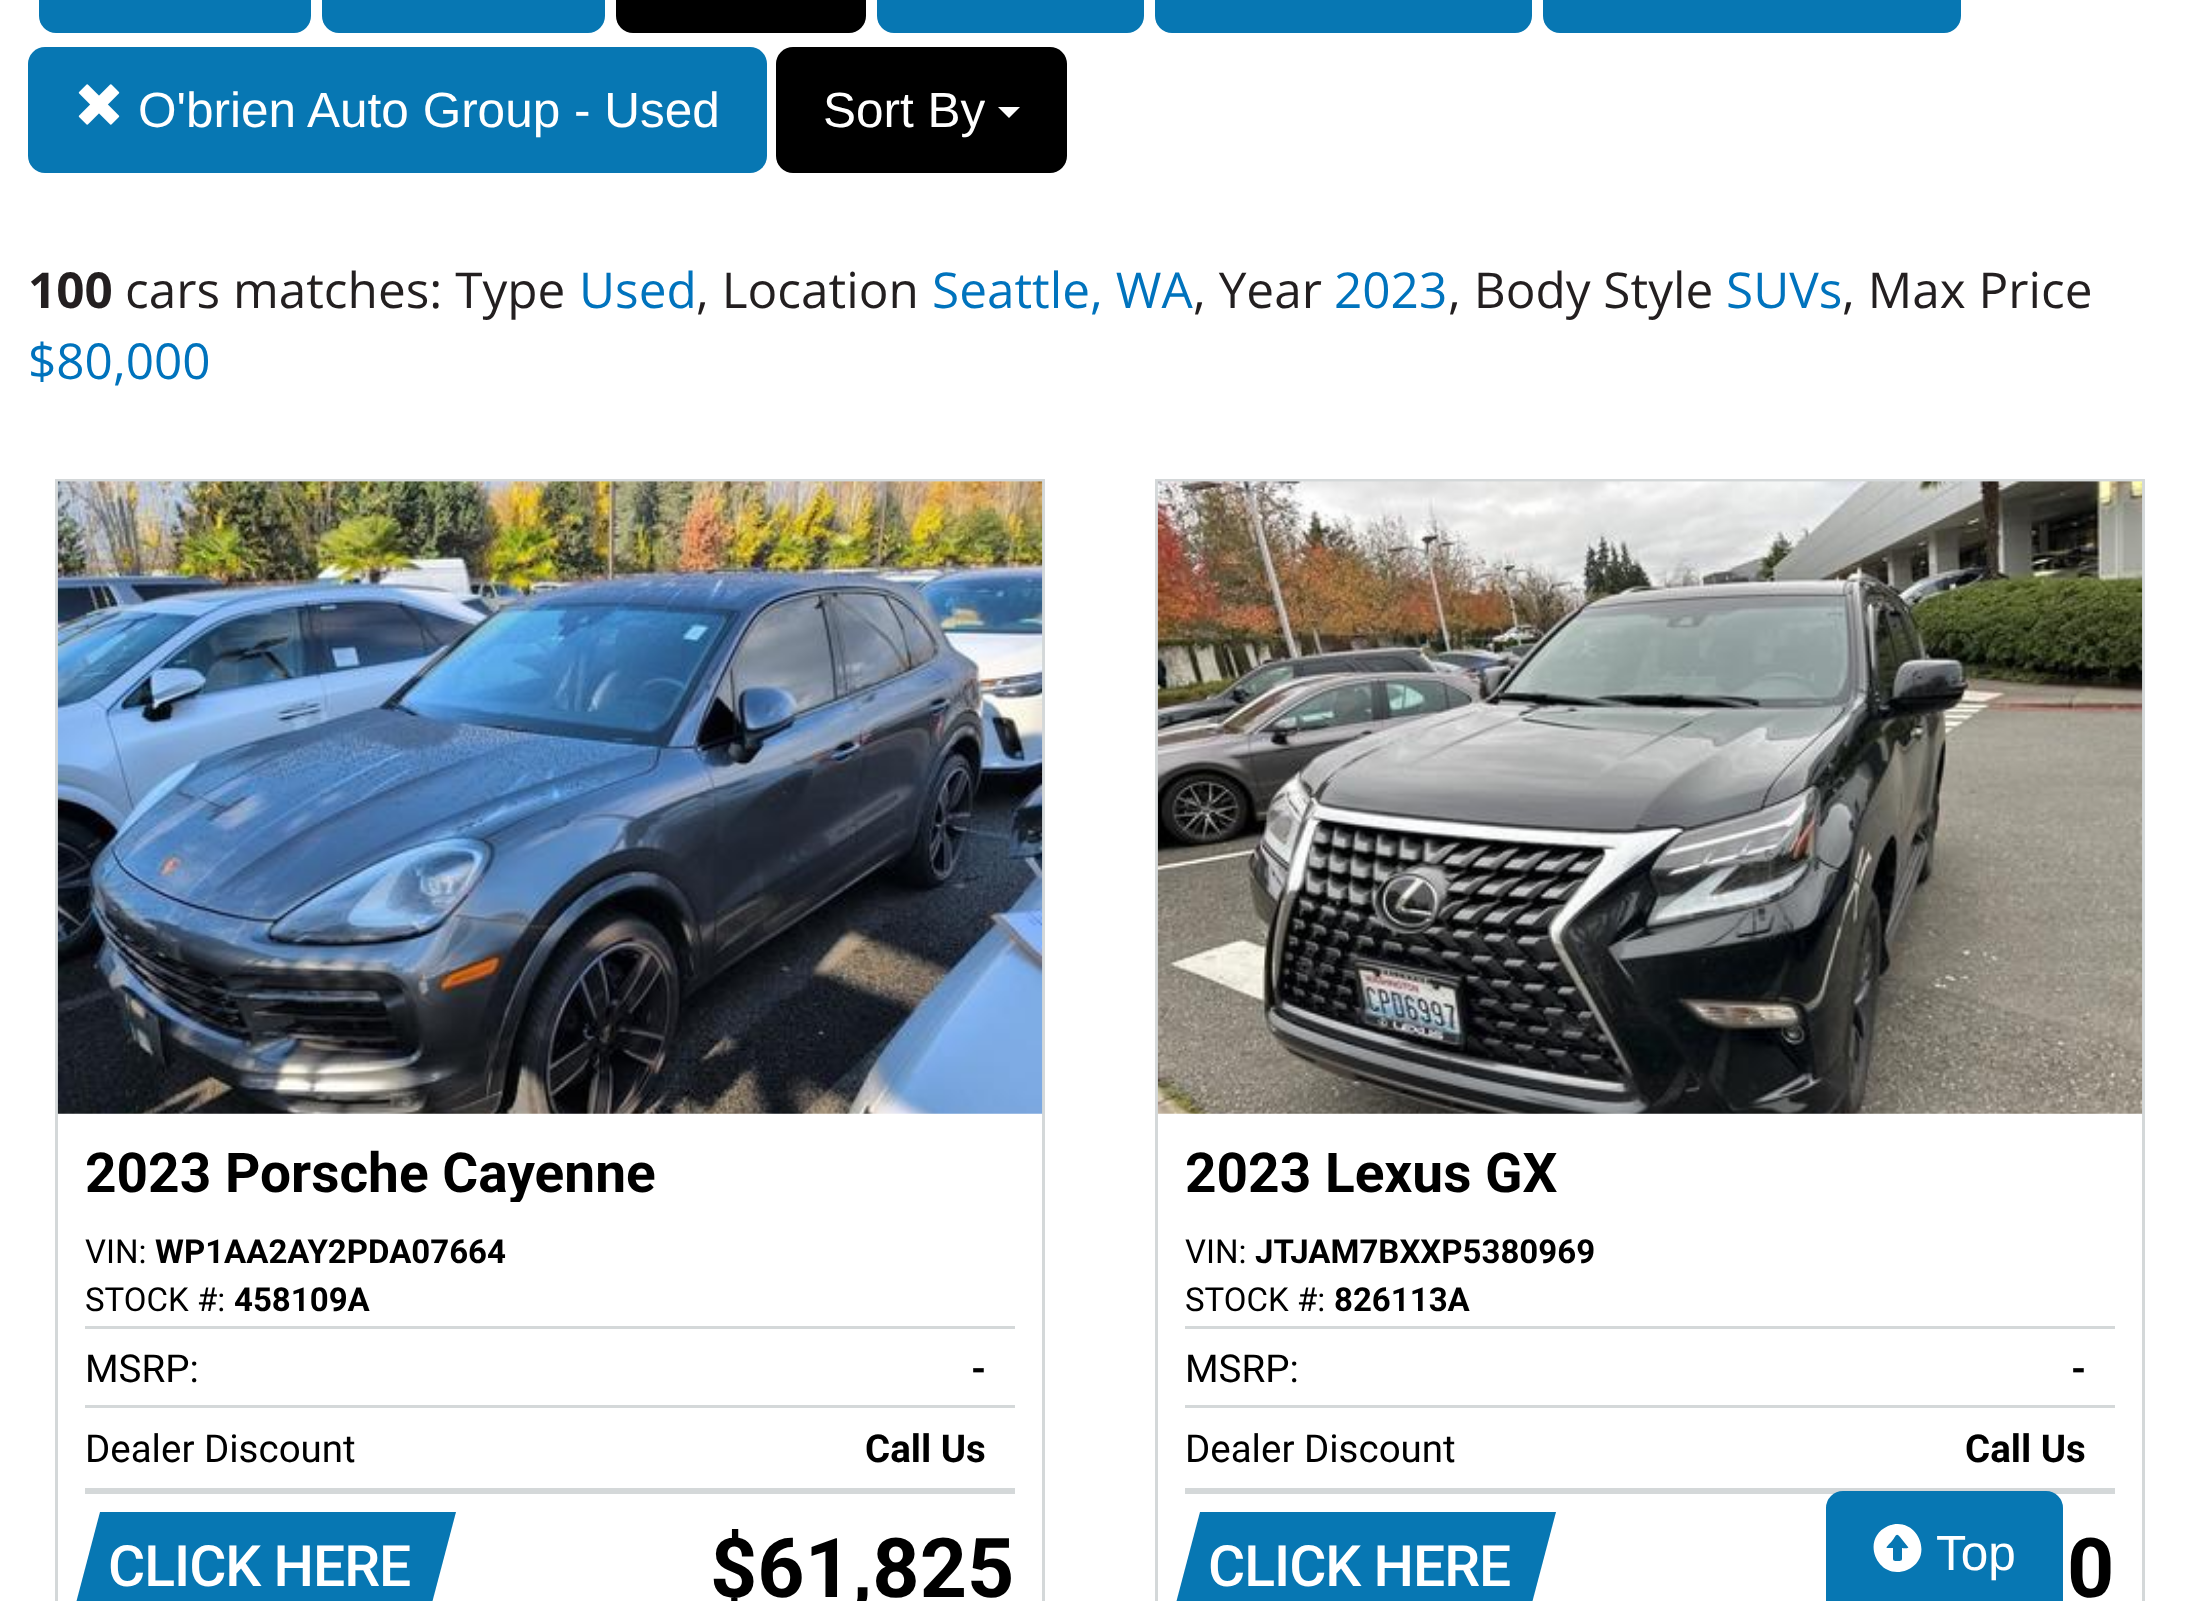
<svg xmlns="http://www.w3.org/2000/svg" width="2200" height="1601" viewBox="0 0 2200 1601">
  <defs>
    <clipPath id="clip1"><path d="M85 1141h572v61H85z"/></clipPath>
  </defs>
  <rect width="100%" height="100%" fill="#fff"/>
  <rect x="39" y="-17" width="272" height="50" rx="17" fill="#0777b3"/>
  <rect x="322" y="-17" width="283" height="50" rx="17" fill="#0777b3"/>
  <rect x="616" y="-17" width="250" height="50" rx="17" fill="#000"/>
  <rect x="877" y="-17" width="267" height="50" rx="17" fill="#0777b3"/>
  <rect x="1155" y="-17" width="377" height="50" rx="17" fill="#0777b3"/>
  <rect x="1543" y="-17" width="418" height="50" rx="17" fill="#0777b3"/>
  <rect x="28" y="47" width="739" height="126" rx="17" fill="#0777b3"/>
  <image x="78" y="84" width="42" height="41" href="img/1.png"/>
  <rect x="776" y="47" width="291" height="126" rx="17" fill="#000"/>
  <path d="M998 107H1020L1009 118Z" fill="#fff"/>
  <path d="M56.5 480.5h987v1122H56.5z" fill="none" stroke="#d4d8d9" stroke-width="3"/>
  <image x="57" y="481" width="986" height="633" href="img/2.png"/>
  <path d="M85 1326h930v3H85z" fill="#d4d8d9"/>
  <path d="M85 1405h930v3H85z" fill="#d4d8d9"/>
  <path d="M85 1488h930v6H85z" fill="#d4d8d9"/>
  <path d="M100 1512H456L427 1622H71Z" fill="#0777b3"/>
  <path d="M1156.5 480.5h987v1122H1156.5z" fill="none" stroke="#d4d8d9" stroke-width="3"/>
  <image x="1157" y="481" width="986" height="633" href="img/3.png"/>
  <path d="M1185 1326h930v3H1185z" fill="#d4d8d9"/>
  <path d="M1185 1405h930v3H1185z" fill="#d4d8d9"/>
  <path d="M1185 1488h930v6H1185z" fill="#d4d8d9"/>
  <path d="M1200 1512H1556L1527 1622H1171Z" fill="#0777b3"/>
  <rect x="1827.5" y="1492.5" width="234" height="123" rx="15.5" fill="#0777b3" stroke="#0777b3" stroke-width="3"/>
  <path d="M1888 1526C1917 1514 1936 1558 1907 1570C1878 1582 1859 1539 1888 1526ZM1908 1547L1900 1537C1896 1532 1896 1536 1892 1541C1885 1549 1884 1548 1893 1548V1558C1893 1561 1894 1561 1898 1561C1901 1561 1902 1561 1902 1558V1548C1902 1548 1910 1549 1908 1547Z" fill="#fff"/>
  <g font-family="Liberation Sans" font-size="49.5" fill="#fff">
    <text x="138" y="127">O'brien Auto Group - Used</text>
    <text x="823" y="127">Sort By</text>
  </g>
  <text x="28" y="308" font-family="Open Sans" font-size="49.5" font-weight="bold" fill="#231f20">100</text>
  <text x="125" y="308" font-family="Open Sans" font-size="49.5" fill="#231f20">cars matches: Type</text>
  <text x="579" y="308" font-family="Open Sans" font-size="49.5" fill="#0073bd">Used</text>
  <text x="696" y="308" font-family="Open Sans" font-size="49.5" fill="#231f20">, Location</text>
  <text x="932" y="308" font-family="Open Sans" font-size="49.5" fill="#0073bd">Seattle, WA</text>
  <text x="1193" y="308" font-family="Open Sans" font-size="49.5" fill="#231f20">, Year</text>
  <text x="1334" y="308" font-family="Open Sans" font-size="49.5" fill="#0073bd">2023</text>
  <text x="1448" y="308" font-family="Open Sans" font-size="49.5" fill="#231f20">, Body Style</text>
  <text x="1726" y="308" font-family="Open Sans" font-size="49.5" fill="#0073bd">SUVs</text>
  <text x="1842" y="308" font-family="Open Sans" font-size="49.5" fill="#231f20">, Max Price</text>
  <text x="28" y="379" font-family="Open Sans" font-size="49.5" fill="#0073bd">$80,000</text>
  <g clip-path="url(#clip1)">
    <text x="85" y="1192" font-family="Roboto" font-size="55" font-weight="bold" fill="#000">2023 Porsche Cayenne</text>
  </g>
  <text x="85" y="1263" font-family="Roboto" font-size="33" fill="#000">VIN:</text>
  <text x="155" y="1263" font-family="Roboto" font-size="33" font-weight="bold" fill="#000">WP1AA2AY2PDA07664</text>
  <text x="85" y="1311" font-family="Roboto" font-size="33" fill="#000">STOCK #:</text>
  <text x="234" y="1311" font-family="Roboto" font-size="33" font-weight="bold" fill="#000">458109A</text>
  <text x="85" y="1382" font-family="Roboto" font-size="38.5" fill="#000">MSRP:</text>
  <text x="971" y="1382" font-family="Roboto" font-size="38.5" font-weight="bold" fill="#000">-</text>
  <text x="85" y="1462" font-family="Roboto" font-size="38.5" fill="#000">Dealer Discount</text>
  <text x="865" y="1462" font-family="Roboto" font-size="38.5" font-weight="bold" fill="#000">Call Us</text>
  <text x="108" y="1586" font-family="Roboto" font-size="57" font-weight="500" letter-spacing="-1" fill="#fff">CLICK HERE</text>
  <text x="710" y="1597" font-family="Roboto" font-size="82.5" font-weight="bold" fill="#000">$61,825</text>
  <text x="1185" y="1192" font-family="Roboto" font-size="55" font-weight="bold" fill="#000">2023 Lexus GX</text>
  <text x="1185" y="1263" font-family="Roboto" font-size="33" fill="#000">VIN:</text>
  <text x="1255" y="1263" font-family="Roboto" font-size="33" font-weight="bold" fill="#000">JTJAM7BXXP5380969</text>
  <text x="1185" y="1311" font-family="Roboto" font-size="33" fill="#000">STOCK #:</text>
  <text x="1334" y="1311" font-family="Roboto" font-size="33" font-weight="bold" fill="#000">826113A</text>
  <text x="1185" y="1382" font-family="Roboto" font-size="38.5" fill="#000">MSRP:</text>
  <text x="2071" y="1382" font-family="Roboto" font-size="38.5" font-weight="bold" fill="#000">-</text>
  <text x="1185" y="1462" font-family="Roboto" font-size="38.5" fill="#000">Dealer Discount</text>
  <text x="1965" y="1462" font-family="Roboto" font-size="38.5" font-weight="bold" fill="#000">Call Us</text>
  <text x="1208" y="1586" font-family="Roboto" font-size="57" font-weight="500" letter-spacing="-1" fill="#fff">CLICK HERE</text>
  <text x="2067" y="1597" font-family="Roboto" font-size="82.5" font-weight="bold" fill="#000">0</text>
  <text x="1936" y="1570" font-family="Liberation Sans" font-size="49.5" fill="#fff">Top</text>
</svg>
